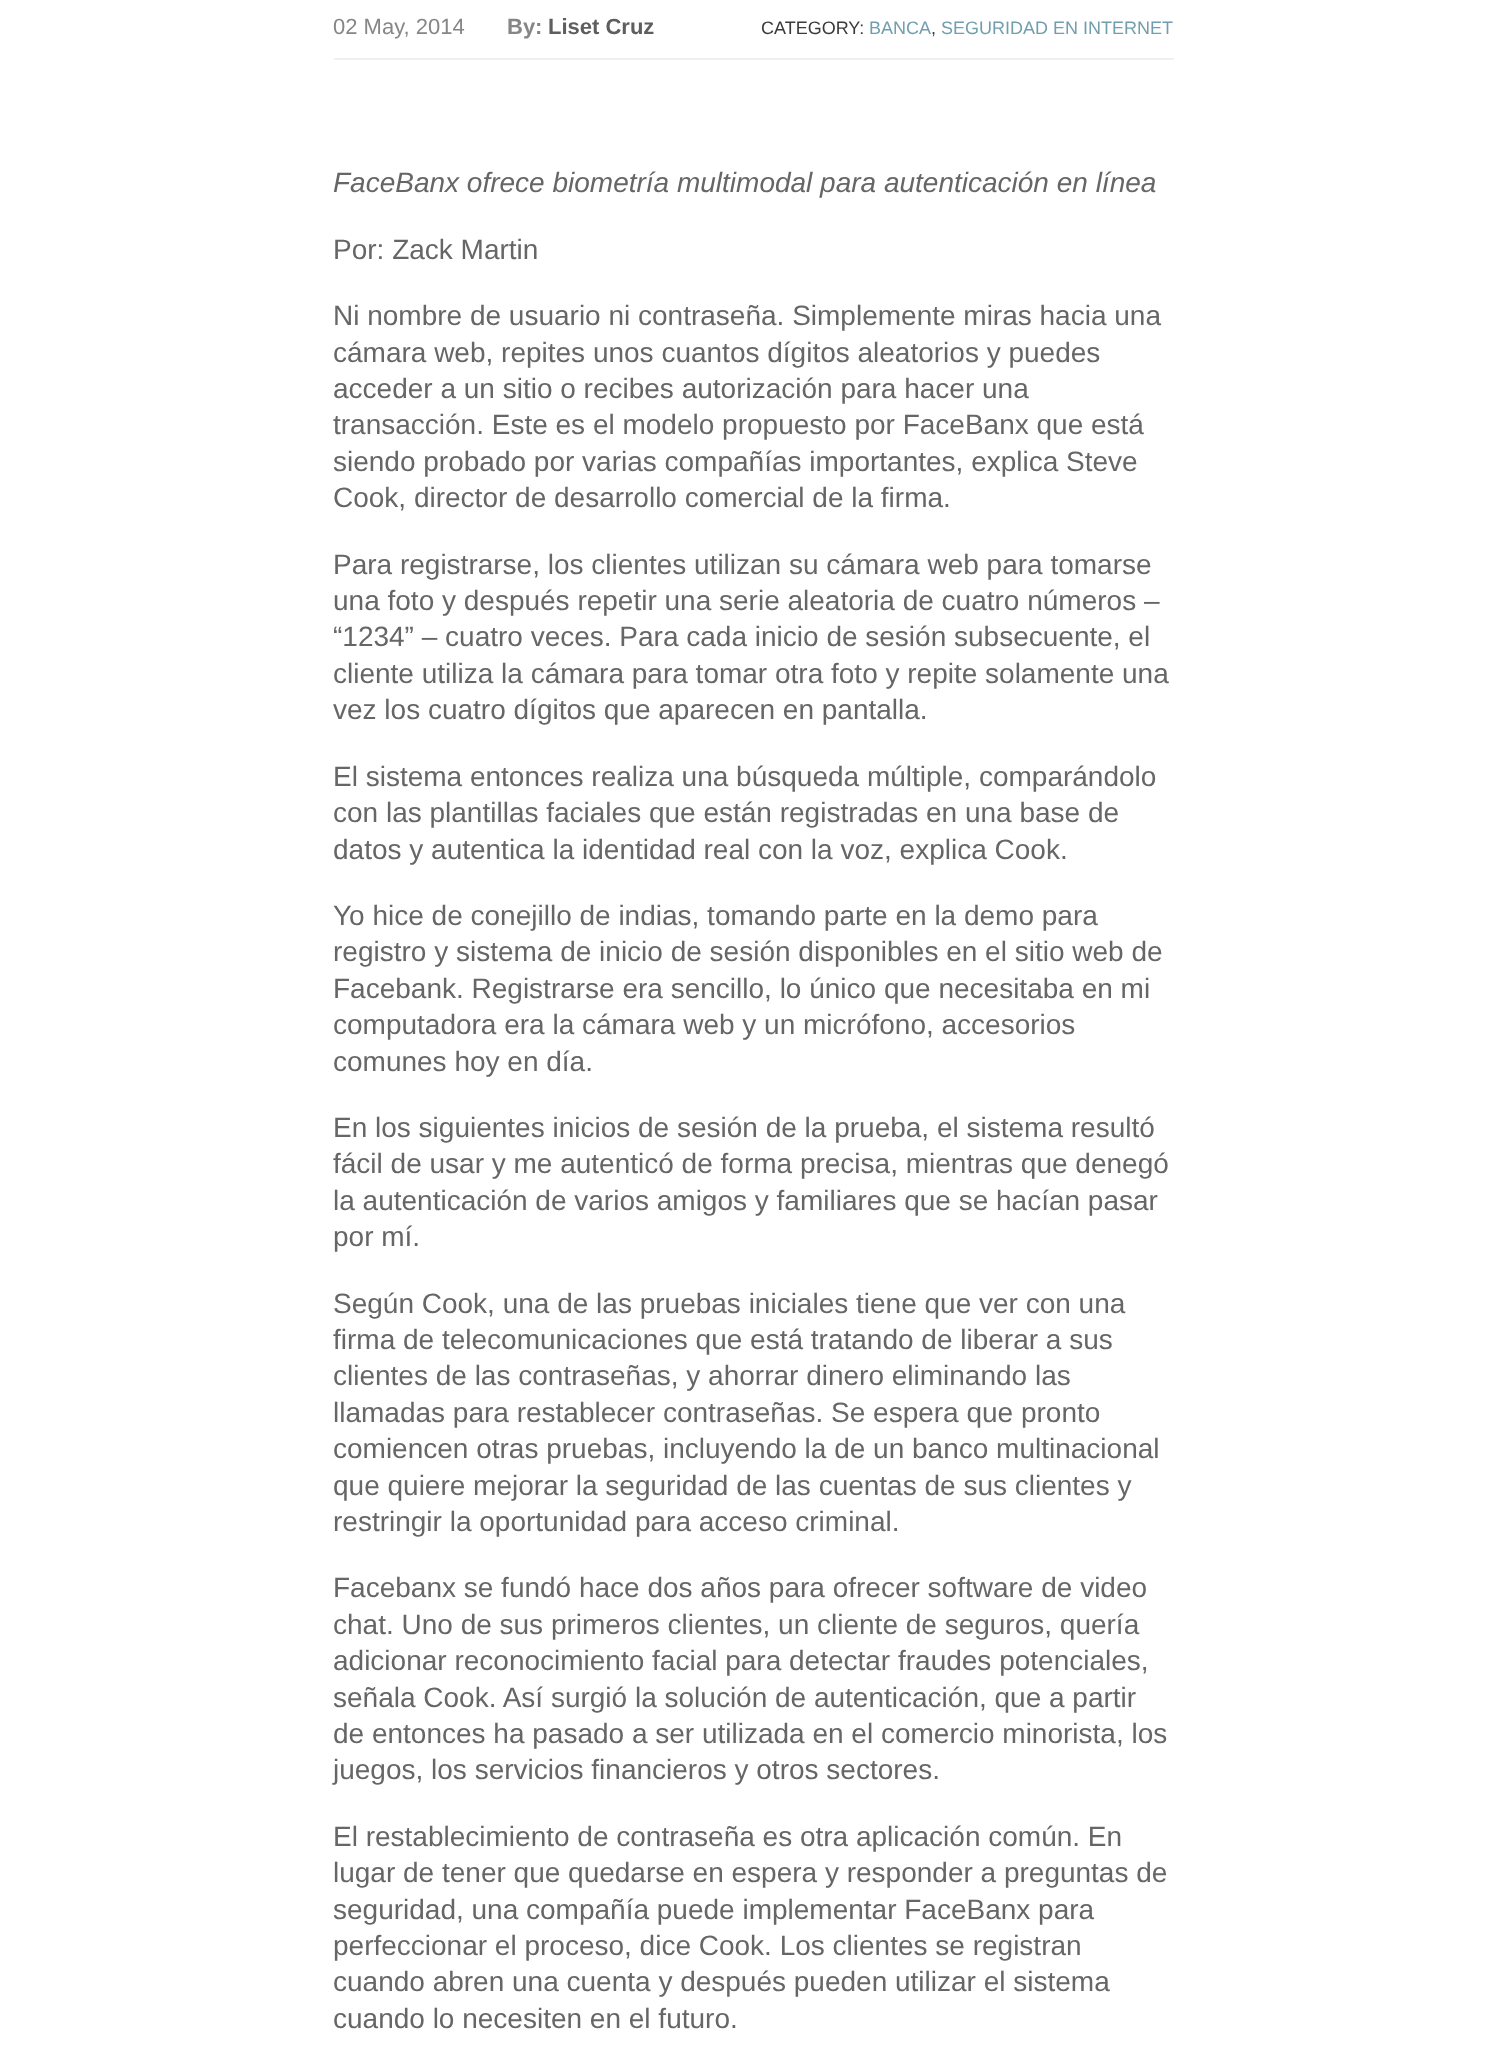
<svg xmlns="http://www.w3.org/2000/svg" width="1505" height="2071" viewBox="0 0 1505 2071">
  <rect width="100%" height="100%" fill="#fff"/>
  <path d="M334 58h840v2H334z" fill="#f0f0f0"/>
  <text x="333" y="34" font-family="Liberation Sans" font-size="22" fill="#868686">02 May, 2014</text>
  <text x="507" y="34" font-family="Liberation Sans" font-size="22" font-weight="bold" fill="#868686">By:</text>
  <text x="548" y="34" font-family="Liberation Sans" font-size="22" font-weight="bold" fill="#5e5e5e">Liset Cruz</text>
  <text x="761" y="34" font-family="Liberation Sans" font-size="18" fill="#3a3a3a">CATEGORY:</text>
  <text x="869" y="34" font-family="Liberation Sans" font-size="18" fill="#719eae">BANCA</text>
  <text x="931" y="34" font-family="Liberation Sans" font-size="18" fill="#3a3a3a">,</text>
  <text x="941" y="34" font-family="Liberation Sans" font-size="18" fill="#719eae">SEGURIDAD EN INTERNET</text>
  <text x="333" y="192" font-family="Liberation Sans" font-size="28" font-style="italic" fill="#666">FaceBanx ofrece biometría multimodal para autenticación en línea</text>
  <g font-family="Liberation Sans" font-size="28" fill="#666">
    <text x="333" y="259">Por: Zack Martin</text>
    <text x="333" y="325">Ni nombre de usuario ni contraseña. Simplemente miras hacia una</text>
    <text x="333" y="362">cámara web, repites unos cuantos dígitos aleatorios y puedes</text>
    <text x="333" y="398">acceder a un sitio o recibes autorización para hacer una</text>
    <text x="333" y="434">transacción. Este es el modelo propuesto por FaceBanx que está</text>
    <text x="333" y="471">siendo probado por varias compañías importantes, explica Steve</text>
    <text x="333" y="507">Cook, director de desarrollo comercial de la firma.</text>
    <text x="333" y="574">Para registrarse, los clientes utilizan su cámara web para tomarse</text>
    <text x="333" y="610">una foto y después repetir una serie aleatoria de cuatro números –</text>
    <text x="333" y="646">“1234” – cuatro veces. Para cada inicio de sesión subsecuente, el</text>
    <text x="333" y="683">cliente utiliza la cámara para tomar otra foto y repite solamente una</text>
    <text x="333" y="719">vez los cuatro dígitos que aparecen en pantalla.</text>
    <text x="333" y="786">El sistema entonces realiza una búsqueda múltiple, comparándolo</text>
    <text x="333" y="822">con las plantillas faciales que están registradas en una base de</text>
    <text x="333" y="859">datos y autentica la identidad real con la voz, explica Cook.</text>
    <text x="333" y="925">Yo hice de conejillo de indias, tomando parte en la demo para</text>
    <text x="333" y="961">registro y sistema de inicio de sesión disponibles en el sitio web de</text>
    <text x="333" y="998">Facebank. Registrarse era sencillo, lo único que necesitaba en mi</text>
    <text x="333" y="1034">computadora era la cámara web y un micrófono, accesorios</text>
    <text x="333" y="1071">comunes hoy en día.</text>
    <text x="333" y="1137">En los siguientes inicios de sesión de la prueba, el sistema resultó</text>
    <text x="333" y="1173">fácil de usar y me autenticó de forma precisa, mientras que denegó</text>
    <text x="333" y="1210">la autenticación de varios amigos y familiares que se hacían pasar</text>
    <text x="333" y="1246">por mí.</text>
    <text x="333" y="1313">Según Cook, una de las pruebas iniciales tiene que ver con una</text>
    <text x="333" y="1349">firma de telecomunicaciones que está tratando de liberar a sus</text>
    <text x="333" y="1385">clientes de las contraseñas, y ahorrar dinero eliminando las</text>
    <text x="333" y="1422">llamadas para restablecer contraseñas. Se espera que pronto</text>
    <text x="333" y="1458">comiencen otras pruebas, incluyendo la de un banco multinacional</text>
    <text x="333" y="1495">que quiere mejorar la seguridad de las cuentas de sus clientes y</text>
    <text x="333" y="1531">restringir la oportunidad para acceso criminal.</text>
    <text x="333" y="1597">Facebanx se fundó hace dos años para ofrecer software de video</text>
    <text x="333" y="1634">chat. Uno de sus primeros clientes, un cliente de seguros, quería</text>
    <text x="333" y="1670">adicionar reconocimiento facial para detectar fraudes potenciales,</text>
    <text x="333" y="1707">señala Cook. Así surgió la solución de autenticación, que a partir</text>
    <text x="333" y="1743">de entonces ha pasado a ser utilizada en el comercio minorista, los</text>
    <text x="333" y="1779">juegos, los servicios financieros y otros sectores.</text>
    <text x="333" y="1846">El restablecimiento de contraseña es otra aplicación común. En</text>
    <text x="333" y="1882">lugar de tener que quedarse en espera y responder a preguntas de</text>
    <text x="333" y="1919">seguridad, una compañía puede implementar FaceBanx para</text>
    <text x="333" y="1955">perfeccionar el proceso, dice Cook. Los clientes se registran</text>
    <text x="333" y="1991">cuando abren una cuenta y después pueden utilizar el sistema</text>
    <text x="333" y="2028">cuando lo necesiten en el futuro.</text>
  </g>
</svg>
